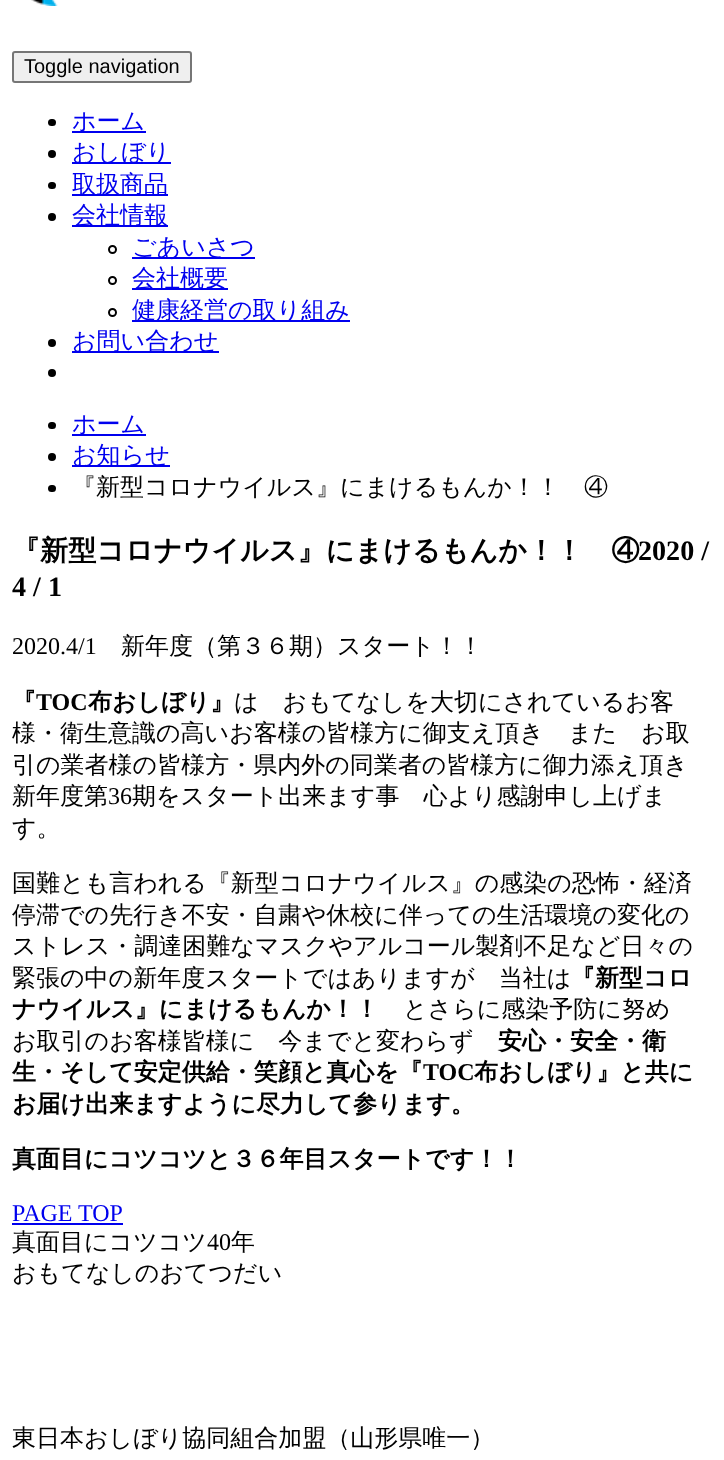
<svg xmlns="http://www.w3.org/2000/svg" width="724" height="1460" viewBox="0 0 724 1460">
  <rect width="100%" height="100%" fill="#fff"/>
  <image x="31" y="0" width="27" height="6" href="img/1.png"/>
  <rect x="13" y="52" width="178" height="30" rx="2" fill="#efefef" stroke="#767676" stroke-width="2"/>
  <rect x="48" y="119" width="8" height="7" rx="3.5" fill="#000"/>
  <path d="M72 131h74v2H72z" fill="#00e"/>
  <circle cx="52" cy="154" r="4" fill="#000"/>
  <path d="M72 162h99v2H72z" fill="#00e"/>
  <rect x="48" y="182" width="8" height="7" rx="3.5" fill="#000"/>
  <path d="M72 194h96v2H72z" fill="#00e"/>
  <circle cx="52" cy="217" r="4" fill="#000"/>
  <path d="M72 225h96v2H72z" fill="#00e"/>
  <circle cx="112.5" cy="249.5" r="3.5" fill="none" stroke="#000" stroke-width="2"/>
  <path d="M132 257h123v2H132z" fill="#00e"/>
  <circle cx="112.5" cy="280.5" r="3.5" fill="none" stroke="#000" stroke-width="2"/>
  <path d="M132 288h96v2H132z" fill="#00e"/>
  <circle cx="112.5" cy="312.5" r="3.5" fill="none" stroke="#000" stroke-width="2"/>
  <path d="M132 320h218v2H132z" fill="#00e"/>
  <circle cx="52" cy="343" r="4" fill="#000"/>
  <path d="M72 351h147v2H72z" fill="#00e"/>
  <circle cx="52" cy="373" r="4" fill="#000"/>
  <rect x="48" y="422" width="8" height="7" rx="3.5" fill="#000"/>
  <path d="M72 434h74v2H72z" fill="#00e"/>
  <circle cx="52" cy="457" r="4" fill="#000"/>
  <path d="M72 465h98v2H72z" fill="#00e"/>
  <rect x="48" y="485" width="8" height="7" rx="3.5" fill="#000"/>
  <path d="M12 1223h111v2H12z" fill="#00e"/>
  <text x="24" y="73" font-family="Liberation Sans" font-size="20" fill="#000">Toggle navigation</text>
  <g font-family="WenQuanYi Zen Hei" font-size="24" font-weight="500" fill="#00e">
    <text x="72" y="129">ホーム</text>
    <text x="72" y="160">おしぼり</text>
    <text x="72" y="192">取扱商品</text>
    <text x="72" y="223">会社情報</text>
    <text x="132" y="255">ごあいさつ</text>
    <text x="132" y="286">会社概要</text>
    <text x="132" y="318">健康経営の取り組み</text>
    <text x="72" y="349">お問い合わせ</text>
    <text x="72" y="432">ホーム</text>
    <text x="72" y="463">お知らせ</text>
  </g>
  <text x="72" y="495" font-family="WenQuanYi Zen Hei" font-size="24" font-weight="500" fill="#000">『新型コロナウイルス』にまけるもんか！！　④</text>
  <text x="12" y="560" font-family="WenQuanYi Zen Hei" font-size="28.1" font-weight="bold" fill="#000">『新型コロナウイルス』にまけるもんか！！　④</text>
  <g font-family="Liberation Serif" font-size="28.1" font-weight="bold" fill="#000">
    <text x="638" y="560">2020 /</text>
    <text x="12" y="596">4 / 1</text>
  </g>
  <text x="12" y="654" font-family="Liberation Serif" font-size="24" fill="#000">2020.4/1</text>
  <text x="121" y="654" font-family="WenQuanYi Zen Hei" font-size="24" font-weight="500" fill="#000">新年度（第３６期）スタート！！</text>
  <text x="12" y="710" font-family="WenQuanYi Zen Hei" font-size="24" font-weight="bold" fill="#000">『</text>
  <text x="36" y="710" font-family="Liberation Serif" font-size="24" font-weight="bold" fill="#000">TOC</text>
  <text x="88" y="710" font-family="WenQuanYi Zen Hei" font-size="24" font-weight="bold" fill="#000">布おしぼり』</text>
  <g font-family="WenQuanYi Zen Hei" font-size="24" font-weight="500" fill="#000">
    <text x="234" y="710">は　おもてなしを大切にされているお客</text>
    <text x="12" y="741">様・衛生意識の高いお客様の皆様方に御支え頂き　また　お取</text>
    <text x="12" y="773">引の業者様の皆様方・県内外の同業者の皆様方に御力添え頂き</text>
    <text x="12" y="804">新年度第</text>
  </g>
  <text x="108" y="804" font-family="Liberation Serif" font-size="24" fill="#000">36</text>
  <g font-family="WenQuanYi Zen Hei" font-size="24" font-weight="500" fill="#000">
    <text x="132" y="804">期をスタート出来ます事　心より感謝申し上げま</text>
    <text x="12" y="836">す。</text>
    <text x="12" y="891">国難とも言われる『新型コロナウイルス』の感染の恐怖・経済</text>
    <text x="12" y="923">停滞での先行き不安・自粛や休校に伴っての生活環境の変化の</text>
    <text x="12" y="954">ストレス・調達困難なマスクやアルコール製剤不足など日々の</text>
    <text x="12" y="986">緊張の中の新年度スタートではありますが　当社は</text>
  </g>
  <g font-family="WenQuanYi Zen Hei" font-size="24" font-weight="bold" fill="#000">
    <text x="571" y="986">『新型コロ</text>
    <text x="12" y="1017">ナウイルス』にまけるもんか！！</text>
  </g>
  <g font-family="WenQuanYi Zen Hei" font-size="24" font-weight="500" fill="#000">
    <text x="403" y="1017">とさらに感染予防に努め</text>
    <text x="12" y="1049">お取引のお客様皆様に　今までと変わらず</text>
  </g>
  <g font-family="WenQuanYi Zen Hei" font-size="24" font-weight="bold" fill="#000">
    <text x="498" y="1049">安心・安全・衛</text>
    <text x="12" y="1080">生・そして安定供給・笑顔と真心を『</text>
  </g>
  <text x="423" y="1080" font-family="Liberation Serif" font-size="24" font-weight="bold" fill="#000">TOC</text>
  <g font-family="WenQuanYi Zen Hei" font-size="24" font-weight="bold" fill="#000">
    <text x="474" y="1080">布おしぼり』と共に</text>
    <text x="12" y="1112">お届け出来ますように尽力して参ります。</text>
    <text x="12" y="1167">真面目にコツコツと３６年目スタートです！！</text>
  </g>
  <text x="12" y="1221" font-family="Liberation Serif" font-size="24" fill="#00e">PAGE TOP</text>
  <text x="12" y="1250" font-family="WenQuanYi Zen Hei" font-size="24" font-weight="500" fill="#000">真面目にコツコツ</text>
  <text x="207" y="1250" font-family="Liberation Serif" font-size="24" fill="#000">40</text>
  <g font-family="WenQuanYi Zen Hei" font-size="24" font-weight="500" fill="#000">
    <text x="231" y="1250">年</text>
    <text x="12" y="1281">おもてなしのおてつだい</text>
    <text x="12" y="1446">東日本おしぼり協同組合加盟（山形県唯一）</text>
  </g>
</svg>
